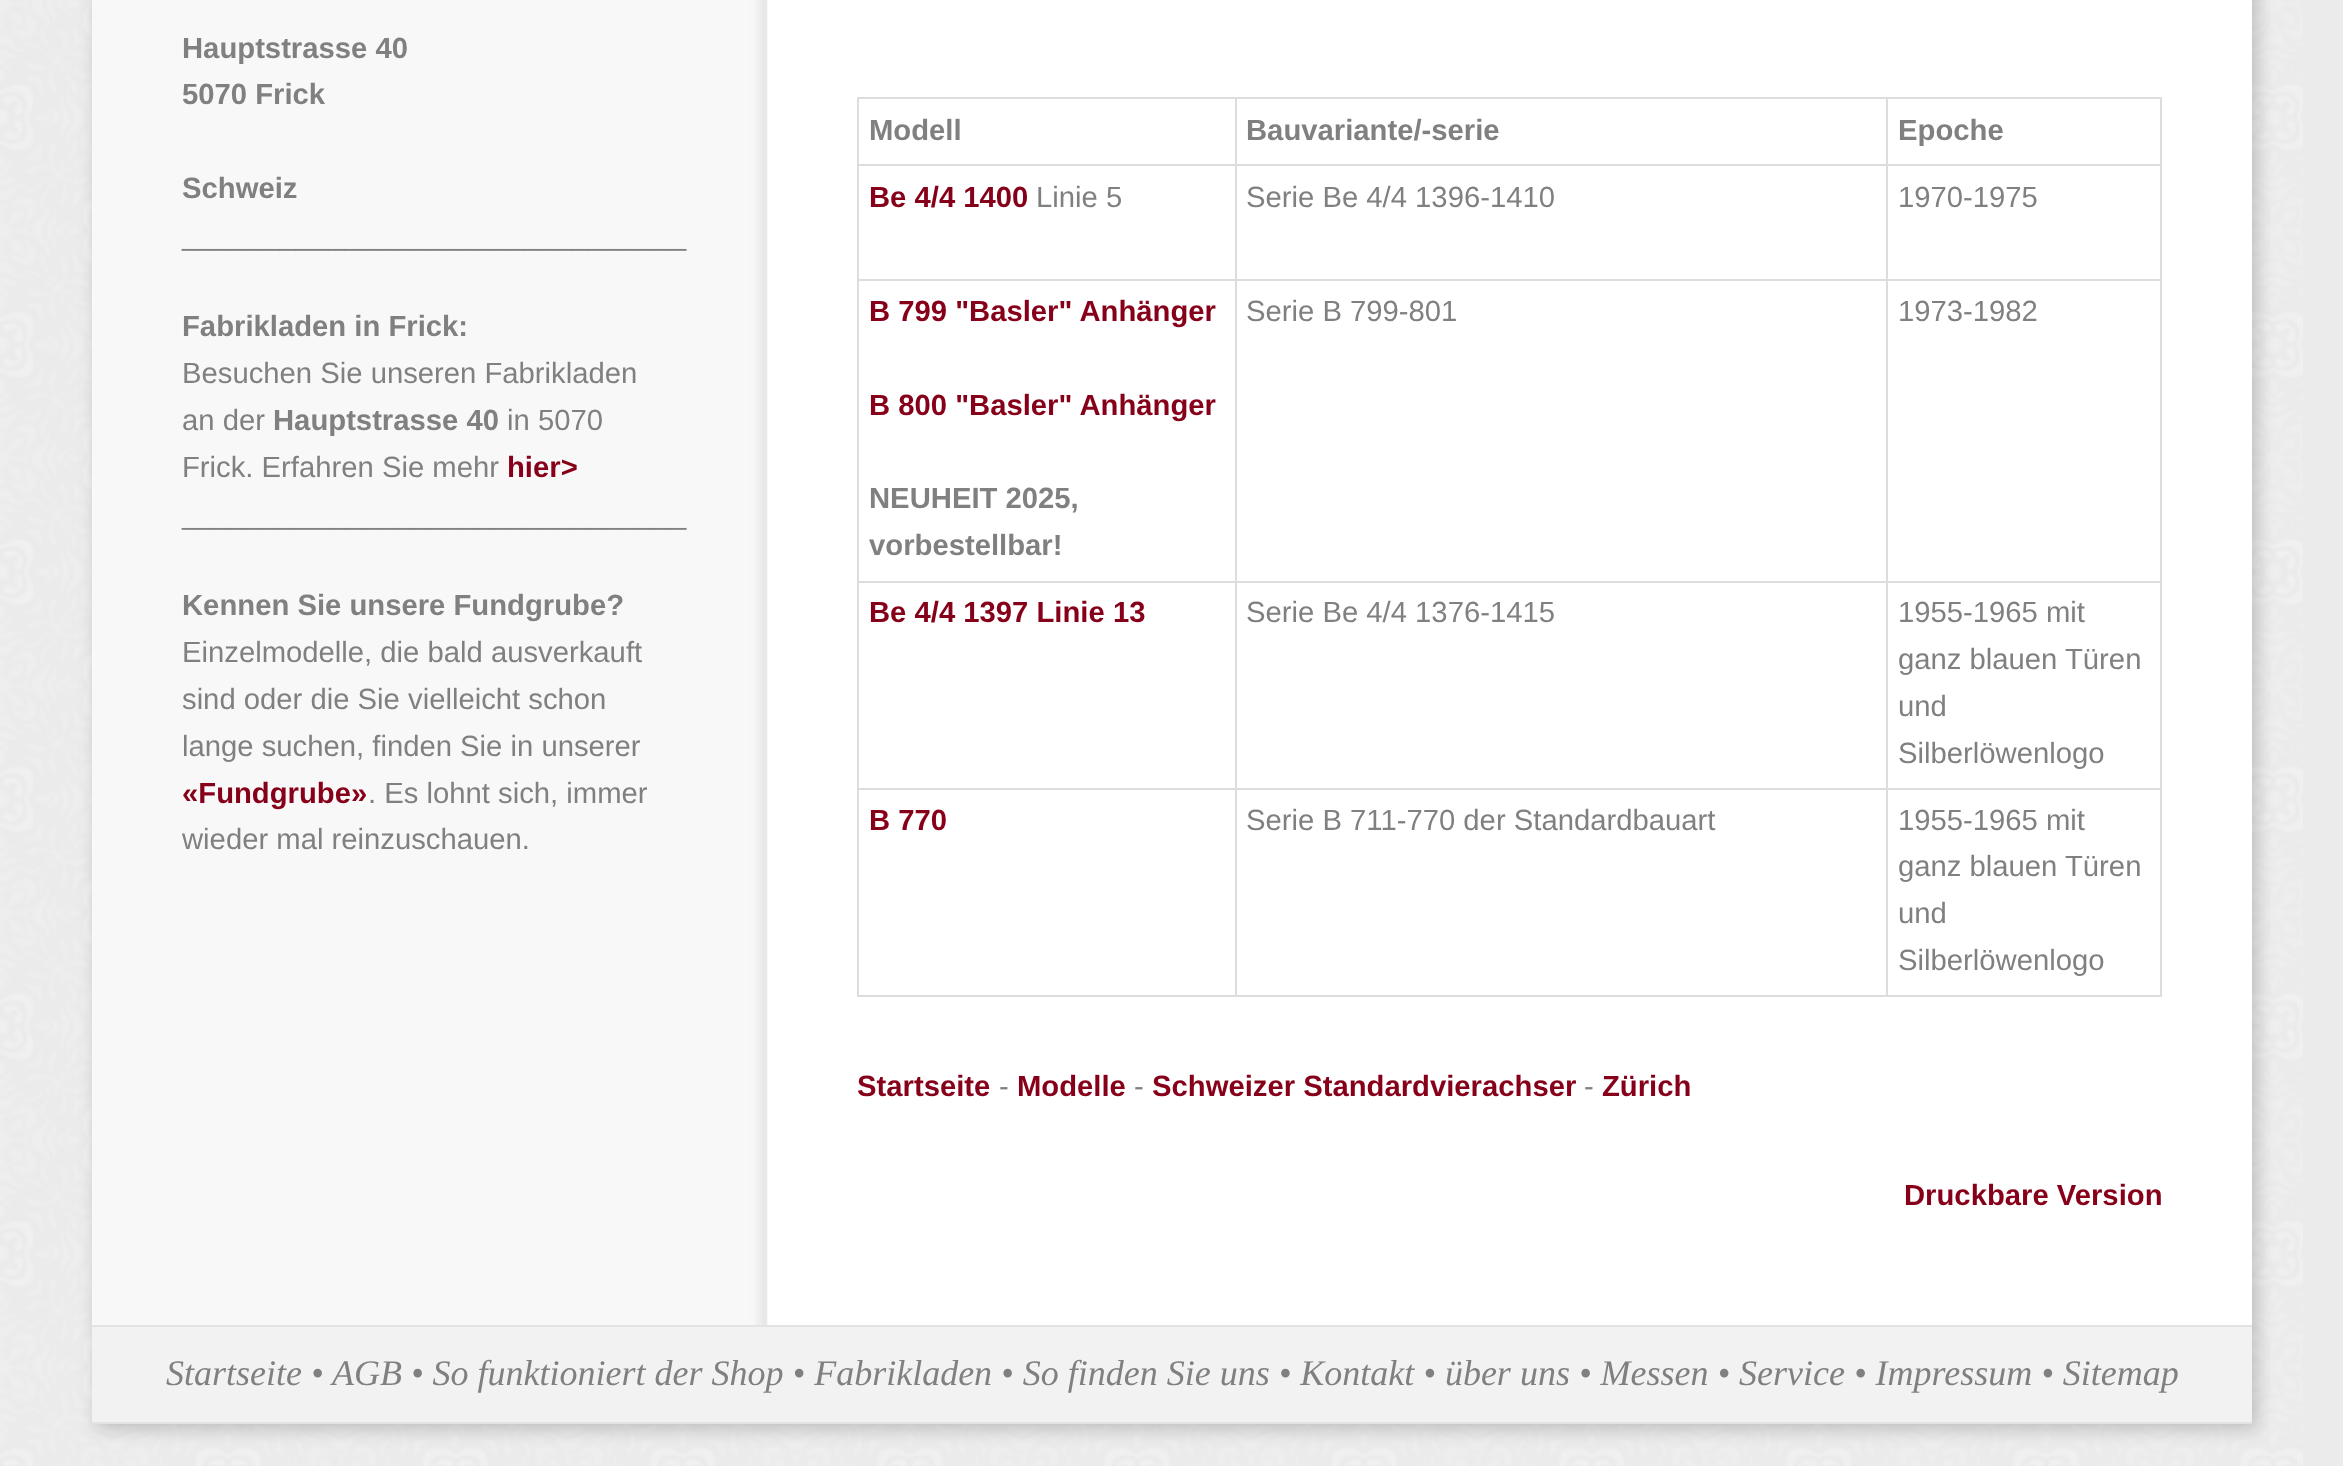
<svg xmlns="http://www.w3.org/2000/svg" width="2343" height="1466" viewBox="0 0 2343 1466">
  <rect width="100%" height="100%" fill="#ebebeb"/>
  <image x="0" y="0" width="2303" height="1466" href="img/1.png"/>
  <path d="M97 -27h2160v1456H97z" fill="#00000033" filter="blur(9px)"/>
  <path d="M92 0h2160v1325H92z" fill="#fff"/>
  <image x="92" y="0" width="676" height="1325" href="img/2.png"/>
  <path d="M857 97h1305v2H857z" fill="#ddd"/>
  <path d="M2160 97h2v900H2160z" fill="#ddd"/>
  <path d="M857 995h1305v2H857z" fill="#ddd"/>
  <path d="M857 97h2v900H857z" fill="#ddd"/>
  <path d="M1886 164h276v2H1886z" fill="#ddd"/>
  <path d="M1886 279h276v2H1886z" fill="#ddd"/>
  <path d="M1886 581h276v2H1886z" fill="#ddd"/>
  <path d="M1886 788h276v2H1886z" fill="#ddd"/>
  <path d="M1886 788h2v209H1886z" fill="#ddd"/>
  <path d="M1235 788h653v2H1235z" fill="#ddd"/>
  <path d="M1886 581h2v209H1886z" fill="#ddd"/>
  <path d="M1235 581h653v2H1235z" fill="#ddd"/>
  <path d="M1886 279h2v304H1886z" fill="#ddd"/>
  <path d="M1235 279h653v2H1235z" fill="#ddd"/>
  <path d="M1886 164h2v117H1886z" fill="#ddd"/>
  <path d="M1235 164h653v2H1235z" fill="#ddd"/>
  <path d="M1235 788h2v209H1235z" fill="#ddd"/>
  <path d="M857 788h381v2H857z" fill="#ddd"/>
  <path d="M1235 581h2v209H1235z" fill="#ddd"/>
  <path d="M857 581h381v2H857z" fill="#ddd"/>
  <path d="M1235 279h2v304H1235z" fill="#ddd"/>
  <path d="M857 279h381v2H857z" fill="#ddd"/>
  <path d="M1235 164h2v117H1235z" fill="#ddd"/>
  <path d="M857 164h381v2H857z" fill="#ddd"/>
  <path d="M1235 97h2v70H1235z" fill="#ddd"/>
  <path d="M1886 97h2v70H1886z" fill="#ddd"/>
  <path d="M92 1327h2160v95H92z" fill="#f2f2f2"/>
  <path d="M92 1325h2160v2H92z" fill="#e3e3e3"/>
  <path d="M92 1422h2160v2H92z" fill="#e3e3e3"/>
  <g font-family="Liberation Sans" font-size="29.25" font-weight="bold" fill="#808080">
    <text x="182" y="58">Hauptstrasse 40</text>
    <text x="182" y="104">5070 Frick</text>
    <text x="182" y="198">Schweiz</text>
  </g>
  <text x="182" y="245" font-family="Liberation Sans" font-size="29.25" fill="#808080">_______________________________</text>
  <text x="182" y="336" font-family="Liberation Sans" font-size="29.25" font-weight="bold" fill="#808080">Fabrikladen in Frick:</text>
  <g font-family="Liberation Sans" font-size="29.25" fill="#808080">
    <text x="182" y="383">Besuchen Sie unseren Fabrikladen</text>
    <text x="182" y="430">an der</text>
  </g>
  <text x="273" y="430" font-family="Liberation Sans" font-size="29.25" font-weight="bold" fill="#808080">Hauptstrasse 40</text>
  <g font-family="Liberation Sans" font-size="29.25" fill="#808080">
    <text x="507" y="430">in 5070</text>
    <text x="182" y="477">Frick. Erfahren Sie mehr</text>
  </g>
  <text x="507" y="477" font-family="Liberation Sans" font-size="29.25" font-weight="bold" fill="#870019">hier&gt;</text>
  <text x="182" y="524" font-family="Liberation Sans" font-size="29.25" fill="#808080">_______________________________</text>
  <text x="182" y="615" font-family="Liberation Sans" font-size="29.25" font-weight="bold" fill="#808080">Kennen Sie unsere Fundgrube?</text>
  <g font-family="Liberation Sans" font-size="29.25" fill="#808080">
    <text x="182" y="662">Einzelmodelle, die bald ausverkauft</text>
    <text x="182" y="709">sind oder die Sie vielleicht schon</text>
    <text x="182" y="756">lange suchen, finden Sie in unserer</text>
  </g>
  <text x="182" y="803" font-family="Liberation Sans" font-size="29.25" font-weight="bold" fill="#870019">«Fundgrube»</text>
  <g font-family="Liberation Sans" font-size="29.25" fill="#808080">
    <text x="368" y="803">. Es lohnt sich, immer</text>
    <text x="182" y="849">wieder mal reinzuschauen.</text>
  </g>
  <g font-family="Liberation Sans" font-size="29.25" font-weight="bold" fill="#808080">
    <text x="869" y="140">Modell</text>
    <text x="1246" y="140">Bauvariante/-serie</text>
    <text x="1898" y="140">Epoche</text>
  </g>
  <text x="869" y="207" font-family="Liberation Sans" font-size="29.25" font-weight="bold" fill="#870019">Be 4/4 1400</text>
  <g font-family="Liberation Sans" font-size="29.25" fill="#808080">
    <text x="1036" y="207">Linie 5</text>
    <text x="1246" y="207">Serie Be 4/4 1396-1410</text>
    <text x="1898" y="207">1970-1975</text>
  </g>
  <g font-family="Liberation Sans" font-size="29.25" font-weight="bold" fill="#870019">
    <text x="869" y="321">B 799 "Basler" Anhänger</text>
    <text x="869" y="415">B 800 "Basler" Anhänger</text>
  </g>
  <g font-family="Liberation Sans" font-size="29.25" font-weight="bold" fill="#808080">
    <text x="869" y="508">NEUHEIT 2025,</text>
    <text x="869" y="555">vorbestellbar!</text>
  </g>
  <g font-family="Liberation Sans" font-size="29.25" fill="#808080">
    <text x="1246" y="321">Serie B 799-801</text>
    <text x="1898" y="321">1973-1982</text>
  </g>
  <text x="869" y="622" font-family="Liberation Sans" font-size="29.25" font-weight="bold" fill="#870019">Be 4/4 1397 Linie 13</text>
  <g font-family="Liberation Sans" font-size="29.25" fill="#808080">
    <text x="1246" y="622">Serie Be 4/4 1376-1415</text>
    <text x="1898" y="622">1955-1965 mit</text>
    <text x="1898" y="669">ganz blauen Türen</text>
    <text x="1898" y="716">und</text>
    <text x="1898" y="763">Silberlöwenlogo</text>
  </g>
  <text x="869" y="830" font-family="Liberation Sans" font-size="29.25" font-weight="bold" fill="#870019">B 770</text>
  <g font-family="Liberation Sans" font-size="29.25" fill="#808080">
    <text x="1246" y="830">Serie B 711-770 der Standardbauart</text>
    <text x="1898" y="830">1955-1965 mit</text>
    <text x="1898" y="876">ganz blauen Türen</text>
    <text x="1898" y="923">und</text>
    <text x="1898" y="970">Silberlöwenlogo</text>
  </g>
  <text x="857" y="1096" font-family="Liberation Sans" font-size="29.25" font-weight="bold" fill="#870019">Startseite</text>
  <text x="999" y="1096" font-family="Liberation Sans" font-size="29.25" fill="#808080">-</text>
  <text x="1017" y="1096" font-family="Liberation Sans" font-size="29.25" font-weight="bold" fill="#870019">Modelle</text>
  <text x="1134" y="1096" font-family="Liberation Sans" font-size="29.25" fill="#808080">-</text>
  <text x="1152" y="1096" font-family="Liberation Sans" font-size="29.25" font-weight="bold" fill="#870019">Schweizer Standardvierachser</text>
  <text x="1584" y="1096" font-family="Liberation Sans" font-size="29.25" fill="#808080">-</text>
  <g font-family="Liberation Sans" font-size="29.25" font-weight="bold" fill="#870019">
    <text x="1602" y="1096">Zürich</text>
    <text x="1904" y="1205">Druckbare Version</text>
  </g>
  <g font-family="Liberation Serif" font-size="36" font-style="italic" fill="#808080">
    <text x="166" y="1385">Startseite •</text>
    <text x="332" y="1385">AGB • So funktioniert der Shop • Fabrikladen • So finden Sie uns • Kontakt • über uns • Messen • Service • Impressum • Sitemap</text>
  </g>
</svg>
